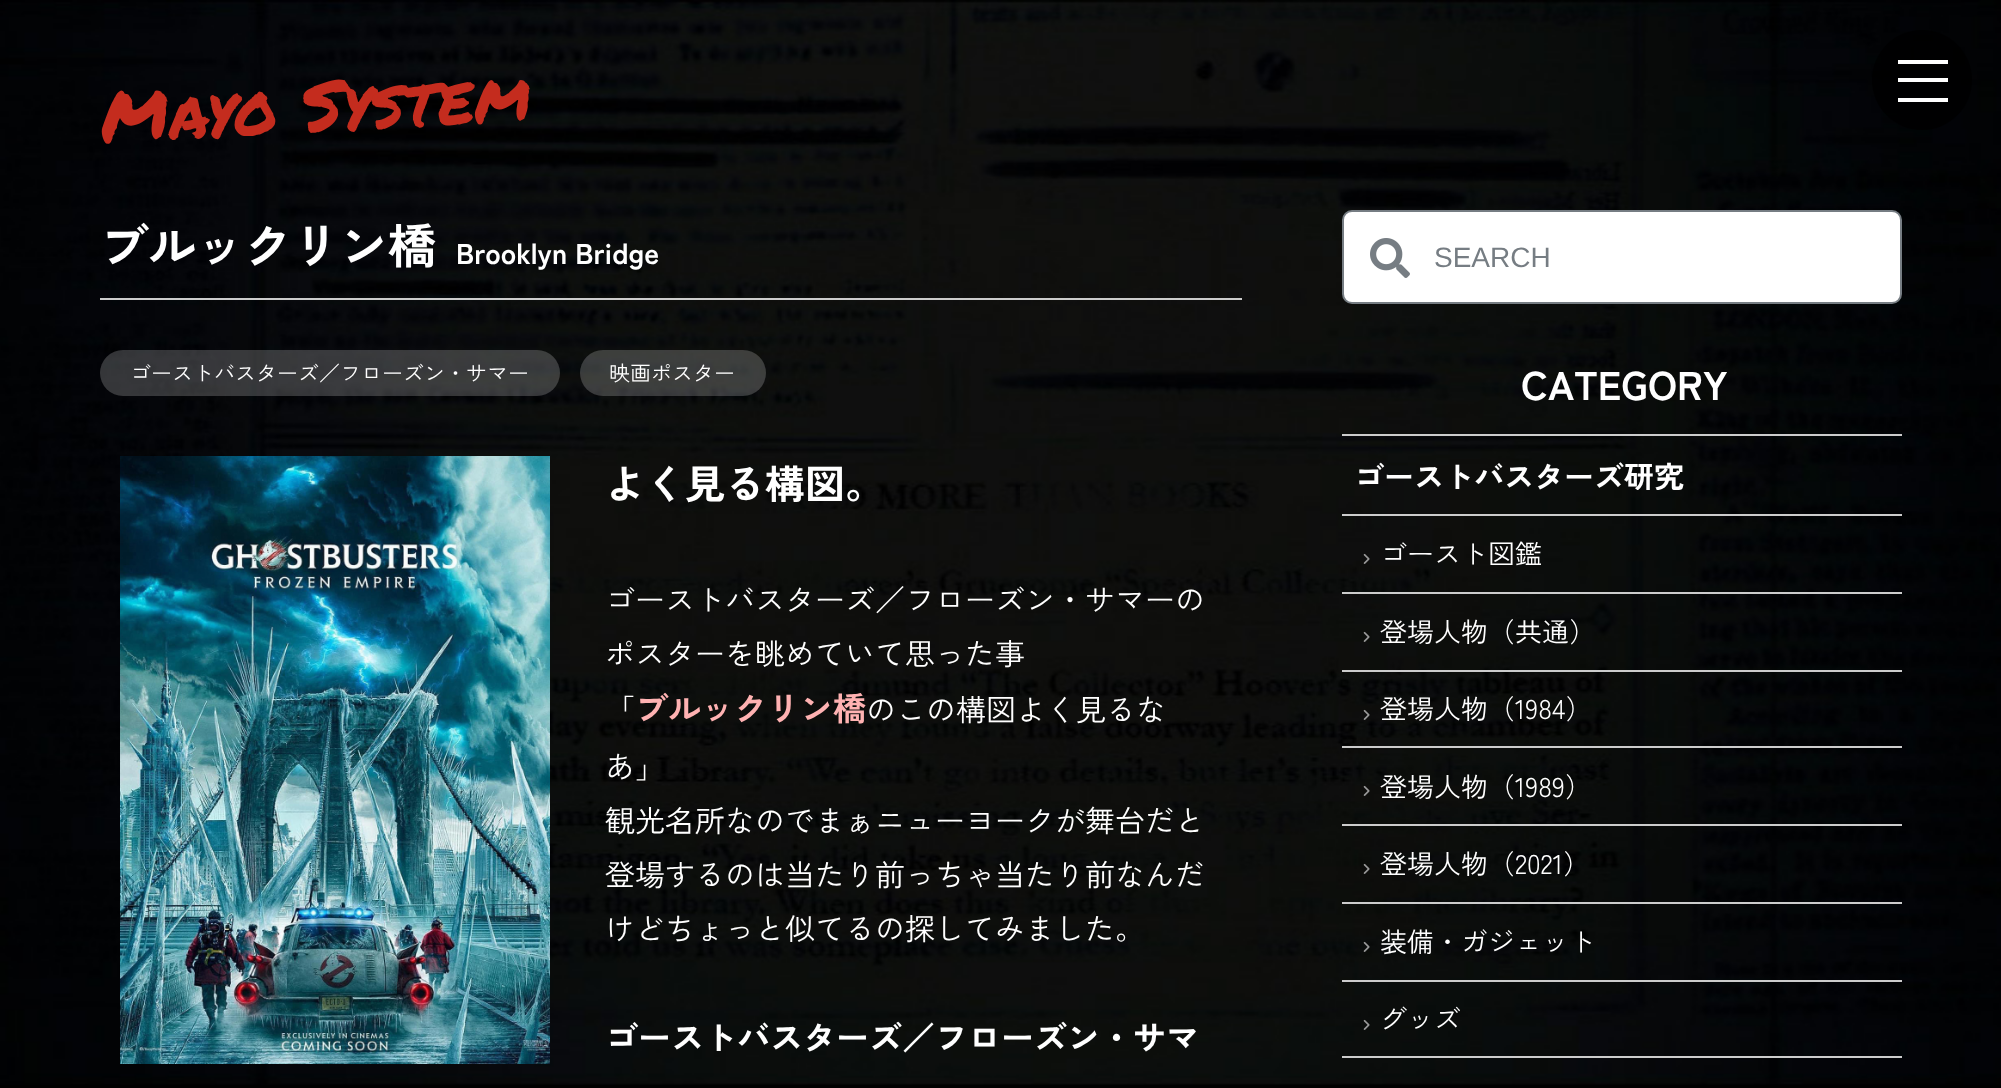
<svg xmlns="http://www.w3.org/2000/svg" width="2001" height="1088" viewBox="0 0 2001 1088">
  <defs>
    <clipPath id="clip1"><path d="M1354 460h536v30H1354z"/></clipPath>
  </defs>
  <rect width="100%" height="100%" fill="#000"/>
  <image x="0" y="0" width="2001" height="1085" href="img/1.png"/>
  <circle cx="1922" cy="80" r="50" fill="#000000cc"/>
  <path d="M1898 78h50v4H1898z" fill="#fff"/>
  <path d="M1898 60h50v4H1898z" fill="#fff"/>
  <path d="M1898 98h50v4H1898z" fill="#fff"/>
  <path d="M100 298h1142v2H100z" fill="#ccc"/>
  <rect x="100" y="350" width="460" height="46" rx="23" fill="#ffffff33"/>
  <rect x="580" y="350" width="186" height="46" rx="23" fill="#ffffff33"/>
  <image x="120" y="456" width="430" height="608" href="img/2.png"/>
  <rect x="1343" y="211" width="558" height="92" rx="9" fill="#fff" stroke="#767d83" stroke-width="2"/>
  <image x="1370" y="238" width="40" height="40" href="img/3.png"/>
  <path d="M1342 434h560v2H1342z" fill="#ccc"/>
  <path d="M1342 514h560v2H1342z" fill="#ccc"/>
  <path d="M1342 592h560v2H1342z" fill="#ccc"/>
  <image x="1363" y="553" width="7" height="11" href="img/4.png"/>
  <path d="M1342 670h560v2H1342z" fill="#ccc"/>
  <image x="1363" y="631" width="7" height="11" href="img/5.png"/>
  <path d="M1342 746h560v2H1342z" fill="#ccc"/>
  <image x="1363" y="709" width="7" height="11" href="img/6.png"/>
  <path d="M1342 824h560v2H1342z" fill="#ccc"/>
  <image x="1363" y="785" width="7" height="11" href="img/7.png"/>
  <path d="M1342 902h560v2H1342z" fill="#ccc"/>
  <image x="1363" y="863" width="7" height="11" href="img/8.png"/>
  <path d="M1342 980h560v2H1342z" fill="#ccc"/>
  <image x="1363" y="941" width="7" height="11" href="img/9.png"/>
  <path d="M1342 1056h560v2H1342z" fill="#ccc"/>
  <image x="1363" y="1019" width="7" height="11" href="img/10.png"/>
  <text x="102" y="143" transform="rotate(-3 102 143)" font-family="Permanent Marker" font-size="70" fill="#c42c1e">Mayo System</text>
  <text x="100" y="264" font-family="Zen Kaku Gothic New" font-size="48" font-weight="bold" fill="#fff">ブルックリン橋</text>
  <text x="456" y="264" font-family="Zen Kaku Gothic New" font-size="28.75" font-weight="bold" fill="#fff">Brooklyn Bridge</text>
  <g font-family="Zen Kaku Gothic New" font-size="21" fill="#fff">
    <text x="130" y="381">ゴーストバスターズ／フローズン・サマー</text>
    <text x="609" y="381">映画ポスター</text>
  </g>
  <text x="605" y="499" font-family="Zen Kaku Gothic New" font-size="40" font-weight="bold" fill="#fff">よく見る構図。</text>
  <g font-family="Zen Kaku Gothic New" font-size="30" fill="#fff">
    <text x="605" y="611">ゴーストバスターズ／フローズン・サマーの</text>
    <text x="605" y="665">ポスターを眺めていて思った事</text>
    <text x="605" y="721">「</text>
  </g>
  <text x="635" y="721" font-family="Zen Kaku Gothic New" font-size="33" font-weight="bold" fill="#ffb2b2">ブルックリン橋</text>
  <g font-family="Zen Kaku Gothic New" font-size="30" fill="#fff">
    <text x="866" y="721">のこの構図よく見るな</text>
    <text x="605" y="778">あ」</text>
    <text x="605" y="832">観光名所なのでまぁニューヨークが舞台だと</text>
    <text x="605" y="886">登場するのは当たり前っちゃ当たり前なんだ</text>
    <text x="605" y="940">けどちょっと似てるの探してみました。</text>
  </g>
  <text x="605" y="1050" font-family="Zen Kaku Gothic New" font-size="33" font-weight="bold" fill="#fff">ゴーストバスターズ／フローズン・サマ</text>
  <text x="1434" y="267" font-family="Liberation Sans" font-size="28" fill="#767d83">SEARCH</text>
  <text x="1521" y="400" font-family="Zen Kaku Gothic New" font-size="40" font-weight="bold" fill="#fff">CATEGORY</text>
  <g clip-path="url(#clip1)">
    <text x="1354" y="488" font-family="Zen Kaku Gothic New" font-size="30" font-weight="bold" fill="#fff">ゴーストバスターズ研究</text>
  </g>
  <g font-family="Zen Kaku Gothic New" font-size="27" fill="#fff">
    <text x="1380" y="564">ゴースト図鑑</text>
    <text x="1380" y="642">登場人物（共通）</text>
    <text x="1380" y="719">登場人物（1984）</text>
    <text x="1380" y="797">登場人物（1989）</text>
    <text x="1380" y="874">登場人物（2021）</text>
    <text x="1380" y="952">装備・ガジェット</text>
    <text x="1380" y="1029">グッズ</text>
  </g>
</svg>
